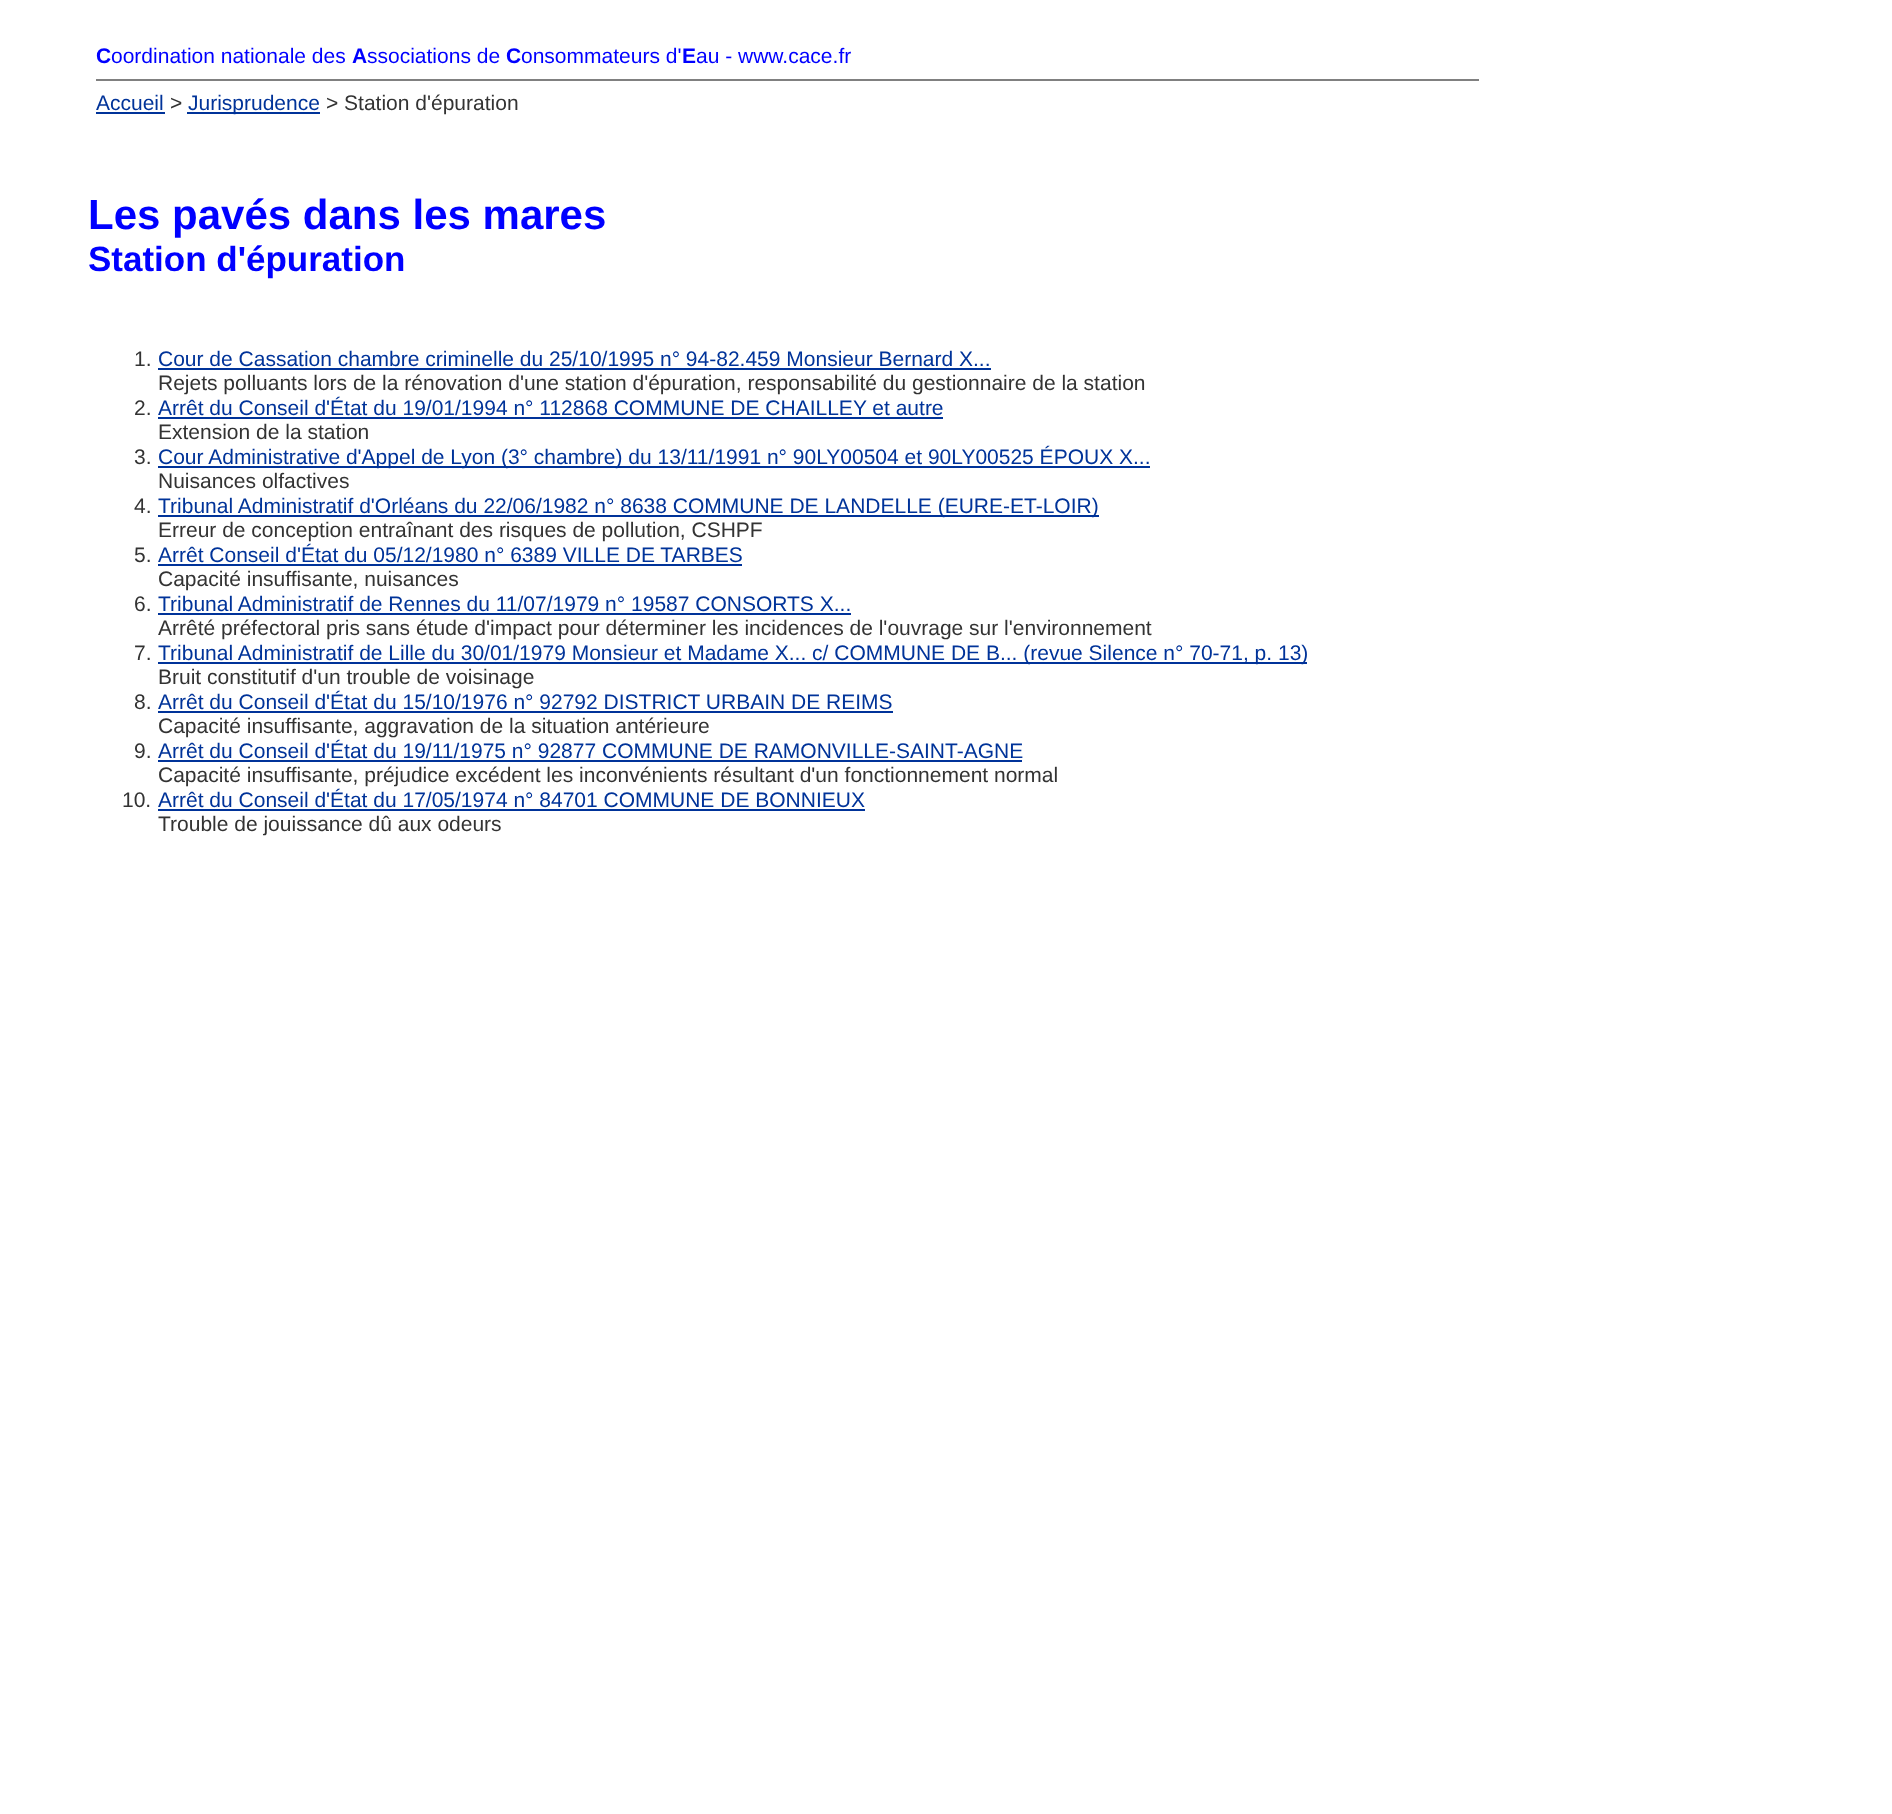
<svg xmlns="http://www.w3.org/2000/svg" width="1892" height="1814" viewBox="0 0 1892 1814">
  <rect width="100%" height="100%" fill="#fff"/>
  <path d="M96 79h1383v2H96z" fill="#808080"/>
  <path d="M96 112h69v2H96z" fill="#039"/>
  <path d="M187 112h133v2H187z" fill="#039"/>
  <path d="M158 368h833v2H158z" fill="#039"/>
  <path d="M158 417h785v2H158z" fill="#039"/>
  <path d="M158 466h992v2H158z" fill="#039"/>
  <path d="M158 515h941v2H158z" fill="#039"/>
  <path d="M158 564h584v2H158z" fill="#039"/>
  <path d="M158 613h693v2H158z" fill="#039"/>
  <path d="M158 662h1149v2H158z" fill="#039"/>
  <path d="M158 711h735v2H158z" fill="#039"/>
  <path d="M158 760h864v2H158z" fill="#039"/>
  <path d="M158 809h707v2H158z" fill="#039"/>
  <text x="96" y="63" font-family="Liberation Sans" font-size="21" font-weight="bold" fill="#00f">C</text>
  <text x="111" y="63" font-family="Liberation Sans" font-size="21" fill="#00f">oordination nationale des</text>
  <text x="352" y="63" font-family="Liberation Sans" font-size="21" font-weight="bold" fill="#00f">A</text>
  <text x="367" y="63" font-family="Liberation Sans" font-size="21" fill="#00f">ssociations de</text>
  <text x="506" y="63" font-family="Liberation Sans" font-size="21" font-weight="bold" fill="#00f">C</text>
  <text x="521" y="63" font-family="Liberation Sans" font-size="21" fill="#00f">onsommateurs d'</text>
  <text x="682" y="63" font-family="Liberation Sans" font-size="21" font-weight="bold" fill="#00f">E</text>
  <text x="696" y="63" font-family="Liberation Sans" font-size="21" fill="#00f">au - www.cace.fr</text>
  <text x="96" y="110" font-family="Liberation Sans" font-size="21" fill="#039">Accueil</text>
  <text x="170" y="110" font-family="Liberation Sans" font-size="21" fill="#333">&gt;</text>
  <text x="188" y="110" font-family="Liberation Sans" font-size="21" fill="#039">Jurisprudence</text>
  <text x="326" y="110" font-family="Liberation Sans" font-size="21" fill="#333">&gt; Station d'épuration</text>
  <text x="88" y="229" font-family="Liberation Sans" font-size="42" font-weight="bold" fill="#00f">Les pavés dans les mares</text>
  <text x="88" y="271" font-family="Liberation Sans" font-size="35" font-weight="bold" fill="#00f">Station d'épuration</text>
  <text x="134" y="366" font-family="Liberation Sans" font-size="21" fill="#333">1.</text>
  <text x="158" y="366" font-family="Liberation Sans" font-size="21" fill="#039">Cour de Cassation chambre criminelle du 25/10/1995 n° 94-82.459 Monsieur Bernard X...</text>
  <g font-family="Liberation Sans" font-size="21" fill="#333">
    <text x="158" y="390">Rejets polluants lors de la rénovation d'une station d'épuration, responsabilité du gestionnaire de la station</text>
    <text x="134" y="415">2.</text>
  </g>
  <text x="158" y="415" font-family="Liberation Sans" font-size="21" fill="#039">Arrêt du Conseil d'État du 19/01/1994 n° 112868 COMMUNE DE CHAILLEY et autre</text>
  <g font-family="Liberation Sans" font-size="21" fill="#333">
    <text x="158" y="439">Extension de la station</text>
    <text x="134" y="464">3.</text>
  </g>
  <text x="158" y="464" font-family="Liberation Sans" font-size="21" fill="#039">Cour Administrative d'Appel de Lyon (3° chambre) du 13/11/1991 n° 90LY00504 et 90LY00525 ÉPOUX X...</text>
  <g font-family="Liberation Sans" font-size="21" fill="#333">
    <text x="158" y="488">Nuisances olfactives</text>
    <text x="134" y="513">4.</text>
  </g>
  <text x="158" y="513" font-family="Liberation Sans" font-size="21" fill="#039">Tribunal Administratif d'Orléans du 22/06/1982 n° 8638 COMMUNE DE LANDELLE (EURE-ET-LOIR)</text>
  <g font-family="Liberation Sans" font-size="21" fill="#333">
    <text x="158" y="537">Erreur de conception entraînant des risques de pollution, CSHPF</text>
    <text x="134" y="562">5.</text>
  </g>
  <text x="158" y="562" font-family="Liberation Sans" font-size="21" fill="#039">Arrêt Conseil d'État du 05/12/1980 n° 6389 VILLE DE TARBES</text>
  <g font-family="Liberation Sans" font-size="21" fill="#333">
    <text x="158" y="586">Capacité insuffisante, nuisances</text>
    <text x="134" y="611">6.</text>
  </g>
  <text x="158" y="611" font-family="Liberation Sans" font-size="21" fill="#039">Tribunal Administratif de Rennes du 11/07/1979 n° 19587 CONSORTS X...</text>
  <g font-family="Liberation Sans" font-size="21" fill="#333">
    <text x="158" y="635">Arrêté préfectoral pris sans étude d'impact pour déterminer les incidences de l'ouvrage sur l'environnement</text>
    <text x="134" y="660">7.</text>
  </g>
  <text x="158" y="660" font-family="Liberation Sans" font-size="21" fill="#039">Tribunal Administratif de Lille du 30/01/1979 Monsieur et Madame X... c/ COMMUNE DE B... (revue Silence n° 70-71, p. 13)</text>
  <g font-family="Liberation Sans" font-size="21" fill="#333">
    <text x="158" y="684">Bruit constitutif d'un trouble de voisinage</text>
    <text x="134" y="709">8.</text>
  </g>
  <text x="158" y="709" font-family="Liberation Sans" font-size="21" fill="#039">Arrêt du Conseil d'État du 15/10/1976 n° 92792 DISTRICT URBAIN DE REIMS</text>
  <g font-family="Liberation Sans" font-size="21" fill="#333">
    <text x="158" y="733">Capacité insuffisante, aggravation de la situation antérieure</text>
    <text x="134" y="758">9.</text>
  </g>
  <text x="158" y="758" font-family="Liberation Sans" font-size="21" fill="#039">Arrêt du Conseil d'État du 19/11/1975 n° 92877 COMMUNE DE RAMONVILLE-SAINT-AGNE</text>
  <g font-family="Liberation Sans" font-size="21" fill="#333">
    <text x="158" y="782">Capacité insuffisante, préjudice excédent les inconvénients résultant d'un fonctionnement normal</text>
    <text x="122" y="807">10.</text>
  </g>
  <text x="158" y="807" font-family="Liberation Sans" font-size="21" fill="#039">Arrêt du Conseil d'État du 17/05/1974 n° 84701 COMMUNE DE BONNIEUX</text>
  <text x="158" y="831" font-family="Liberation Sans" font-size="21" fill="#333">Trouble de jouissance dû aux odeurs</text>
</svg>
